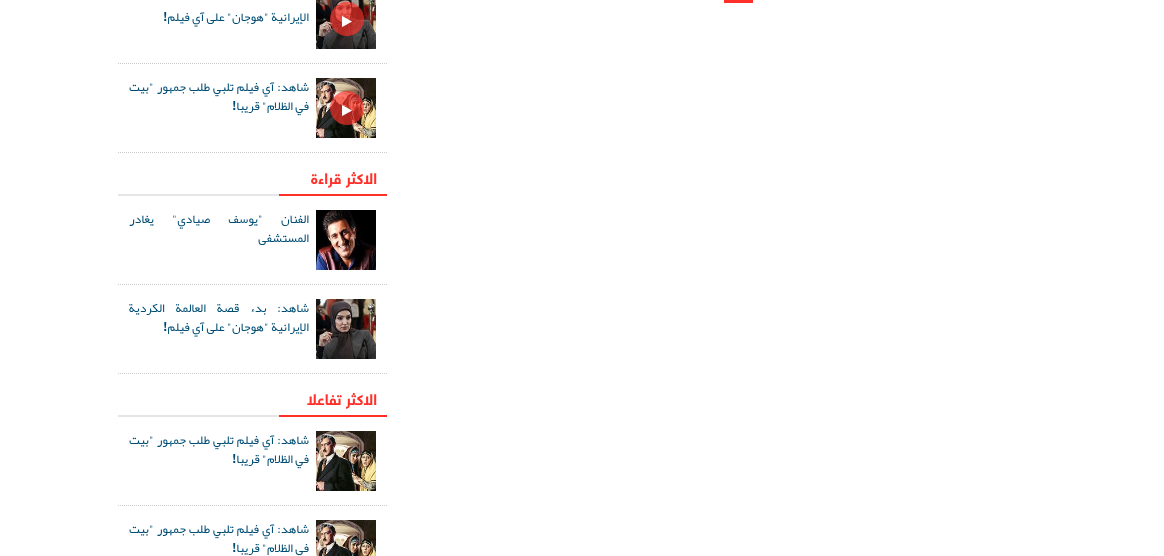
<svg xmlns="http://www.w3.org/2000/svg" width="1164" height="556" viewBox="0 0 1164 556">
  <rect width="100%" height="100%" fill="#fff"/>
  <path d="M724 0h29v3H724z" fill="#ff3029"/>
  <path d="M118 63.5H387" fill="none" stroke="#ccc" stroke-dasharray="1 1"/>
  <image x="316" y="0" width="60" height="49" href="img/1.png"/>
  <circle cx="347" cy="19" r="17" fill="#ff3029a8"/>
  <image x="342" y="16" width="10" height="11" href="img/2.png"/>
  <path d="M118 152.5H387" fill="none" stroke="#ccc" stroke-dasharray="1 1"/>
  <image x="316" y="78" width="60" height="60" href="img/3.png"/>
  <circle cx="347" cy="108" r="17" fill="#ff3029a8"/>
  <image x="342" y="105" width="10" height="11" href="img/4.png"/>
  <path d="M118 194h161v2H118z" fill="#e6e6e6"/>
  <path d="M279 194h108v2H279z" fill="#ff3029"/>
  <path d="M118 284.5H387" fill="none" stroke="#ccc" stroke-dasharray="1 1"/>
  <image x="316" y="210" width="60" height="60" href="img/5.png"/>
  <path d="M118 373.5H387" fill="none" stroke="#ccc" stroke-dasharray="1 1"/>
  <image x="316" y="299" width="60" height="60" href="img/6.png"/>
  <path d="M118 415h161v2H118z" fill="#e6e6e6"/>
  <path d="M279 415h108v2H279z" fill="#ff3029"/>
  <path d="M118 505.5H387" fill="none" stroke="#ccc" stroke-dasharray="1 1"/>
  <image x="316" y="431" width="60" height="60" href="img/3.png"/>
  <image x="316" y="520" width="60" height="36" href="img/7.png"/>
  <text x="309" y="21" font-family="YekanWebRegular" font-size="12.5" direction="rtl" fill="#004d74">الإيرانية "هوجان" على آي فيلم</text>
  <text x="167" y="21" font-family="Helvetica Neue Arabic" font-size="12.5" font-weight="bold" direction="rtl" fill="#004d74">!</text>
  <g font-family="YekanWebRegular" font-size="12.5" direction="rtl" fill="#004d74">
    <text x="309" y="91" word-spacing="0.75">شاهد: آي فيلم تلبي طلب جمهور "بيت</text>
    <text x="309" y="110">في الظلام" قريبا</text>
  </g>
  <text x="236" y="110" font-family="Helvetica Neue Arabic" font-size="12.5" font-weight="bold" direction="rtl" fill="#004d74">!</text>
  <text x="377" y="184" font-family="Helvetica Neue Arabic" font-size="15" font-weight="bold" direction="rtl" fill="#ff3029">الاكثر قراءة</text>
  <g font-family="YekanWebRegular" font-size="12.5" direction="rtl" fill="#004d74">
    <text x="309" y="223" word-spacing="16">الفنان "يوسف صيادي" يغادر</text>
    <text x="309" y="242">المستشفى</text>
    <text x="309" y="312" word-spacing="8.5">شاهد: بدء قصة العالمة الكردية</text>
    <text x="309" y="331">الإيرانية "هوجان" على آي فيلم</text>
  </g>
  <text x="167" y="331" font-family="Helvetica Neue Arabic" font-size="12.5" font-weight="bold" direction="rtl" fill="#004d74">!</text>
  <text x="377" y="405" font-family="Helvetica Neue Arabic" font-size="15" font-weight="bold" direction="rtl" fill="#ff3029">الاکثر تفاعلا</text>
  <g font-family="YekanWebRegular" font-size="12.5" direction="rtl" fill="#004d74">
    <text x="309" y="444" word-spacing="0.75">شاهد: آي فيلم تلبي طلب جمهور "بيت</text>
    <text x="309" y="463">في الظلام" قريبا</text>
  </g>
  <text x="236" y="463" font-family="Helvetica Neue Arabic" font-size="12.5" font-weight="bold" direction="rtl" fill="#004d74">!</text>
  <g font-family="YekanWebRegular" font-size="12.5" direction="rtl" fill="#004d74">
    <text x="309" y="533" word-spacing="0.75">شاهد: آي فيلم تلبي طلب جمهور "بيت</text>
    <text x="309" y="552">في الظلام" قريبا</text>
  </g>
  <text x="236" y="552" font-family="Helvetica Neue Arabic" font-size="12.5" font-weight="bold" direction="rtl" fill="#004d74">!</text>
</svg>
